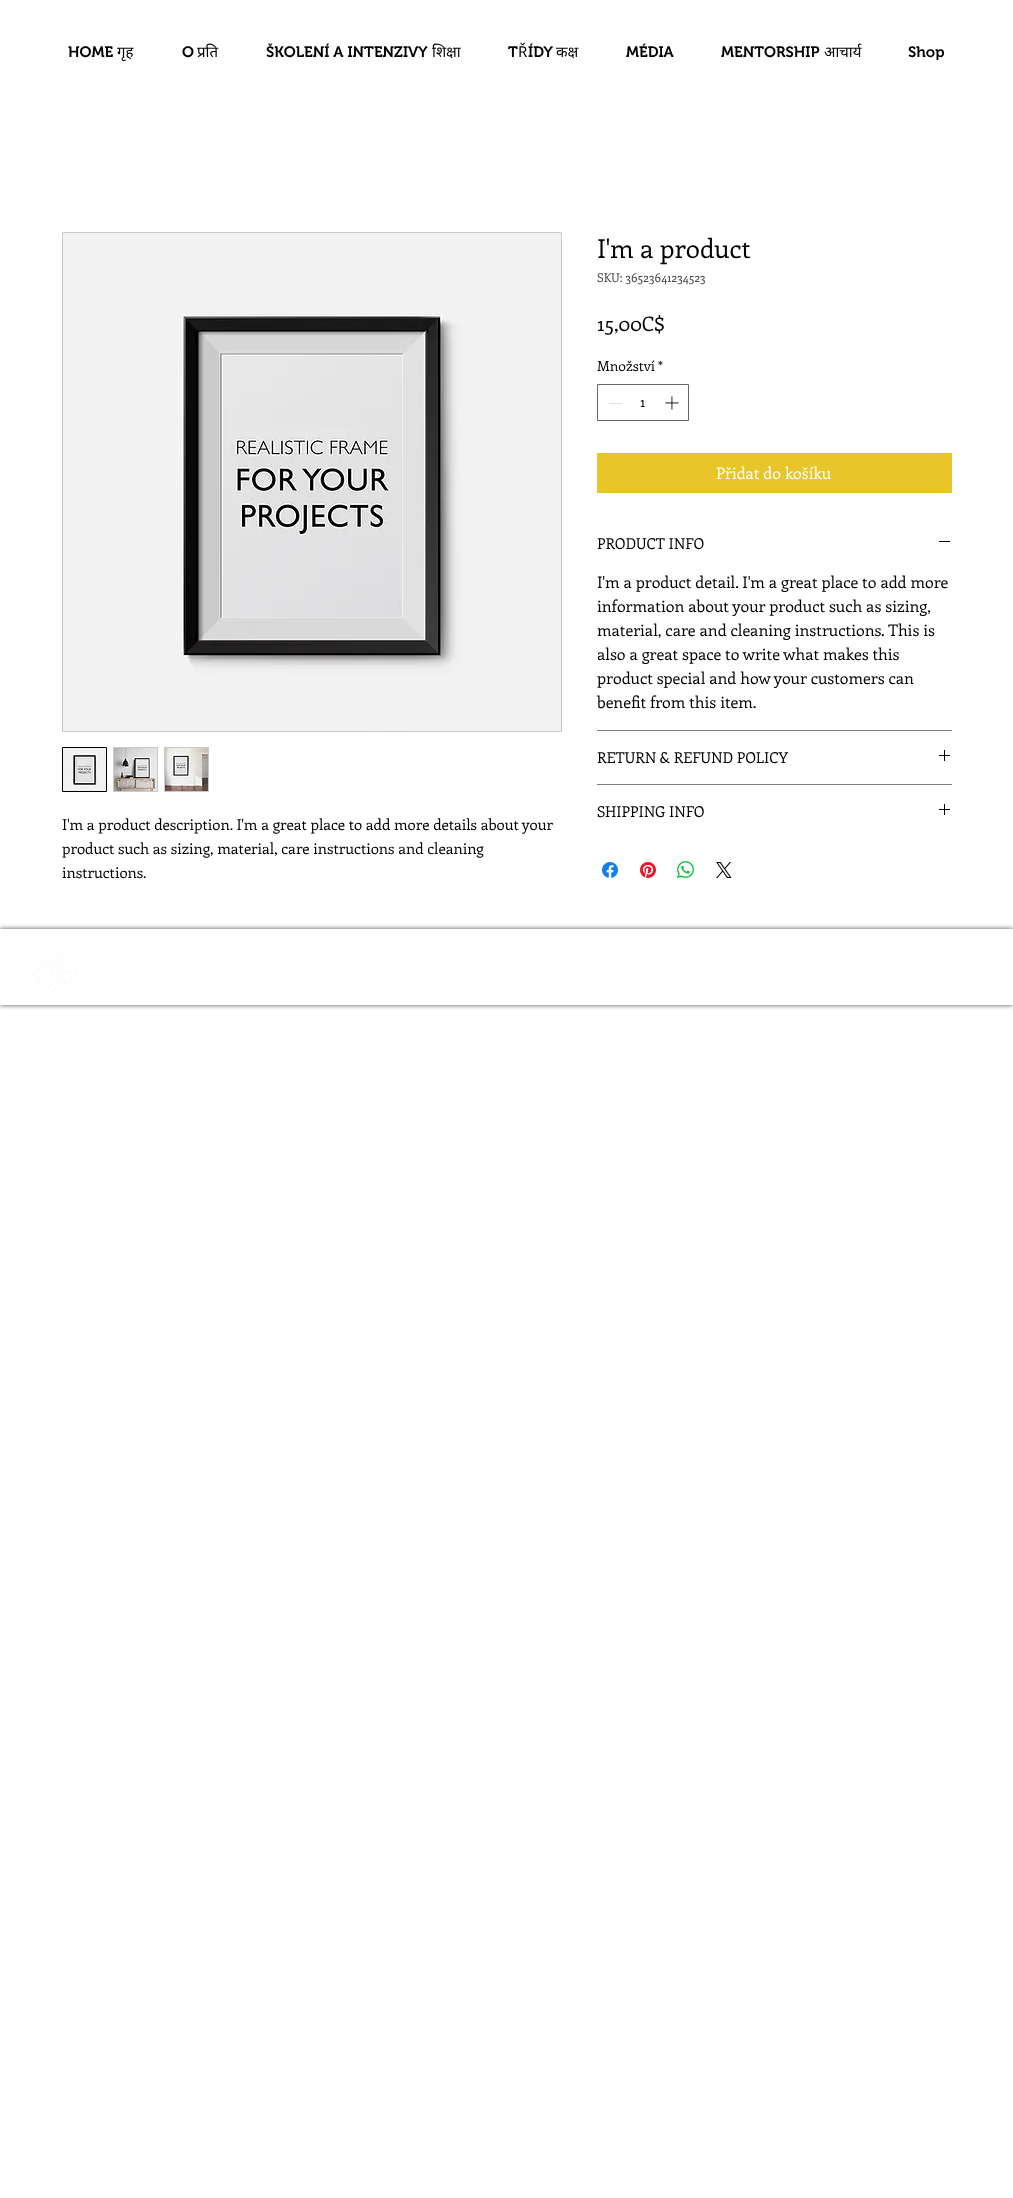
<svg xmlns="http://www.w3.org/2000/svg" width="1013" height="2198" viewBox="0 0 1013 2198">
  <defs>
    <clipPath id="clip1"><path d="M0 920H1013V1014H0ZM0 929H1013V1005H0Z" clip-rule="evenodd"/></clipPath>
  </defs>
  <rect width="100%" height="100%" fill="#fff"/>
  <path d="M597.5 384.5h91v36H597.5z" fill="none" stroke="#666"/>
  <path d="M609 403h13v1H609z" fill="#e3e3e3"/>
  <image x="665" y="396" width="14" height="14" href="img/1.png"/>
  <path d="M597 453h355v40H597z" fill="#e8c529"/>
  <path d="M597 730h355v1H597z" fill="#7f7e7e"/>
  <path d="M939 541h11v1H939z" fill="#000"/>
  <path d="M597 784h355v1H597z" fill="#7f7e7e"/>
  <image x="939" y="750" width="11" height="11" href="img/2.png"/>
  <image x="939" y="804" width="11" height="11" href="img/2.png"/>
  <image x="602" y="862" width="16" height="16" href="img/3.png"/>
  <image x="640" y="862" width="16" height="16" href="img/4.png"/>
  <image x="677" y="861" width="17" height="17" href="img/5.png"/>
  <image x="716" y="862" width="16" height="16" href="img/6.png"/>
  <path d="M62.5 232.5h499v499H62.5z" fill="none" stroke="#cacaca"/>
  <image x="63" y="233" width="498" height="498" href="img/7.png"/>
  <path d="M62.5 747.5h44v44H62.5z" fill="none" stroke="#000"/>
  <image x="63" y="748" width="43" height="43" href="img/8.png"/>
  <path d="M113 747h45v45H113z" fill="#cacaca"/>
  <image x="114" y="748" width="43" height="43" href="img/9.png"/>
  <path d="M164 747h45v45H164z" fill="#cacaca"/>
  <image x="165" y="748" width="43" height="43" href="img/10.png"/>
  <g clip-path="url(#clip1)">
    <path d="M0 929h1013v76H0z" fill="#000000b3" filter="blur(2.5px)"/>
  </g>
  <image x="32" y="952" width="44" height="42" href="img/11.png"/>
  <text x="68" y="57" font-family="'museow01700'" font-size="15" font-weight="600" fill="#000">HOME</text>
  <text x="117" y="57" font-family="Noto Sans" font-size="15" fill="#000">गृह</text>
  <text x="182" y="57" font-family="'museow01700'" font-size="15" font-weight="600" fill="#000">O</text>
  <text x="197" y="57" font-family="Noto Sans" font-size="15" fill="#000">प्रति</text>
  <text x="266" y="57" font-family="'museow01700'" font-size="15" font-weight="600" fill="#000">ŠKOLENÍ A INTENZIVY</text>
  <text x="432" y="57" font-family="Noto Sans" font-size="15" fill="#000">शिक्षा</text>
  <text x="508" y="57" font-family="'museow01700'" font-size="15" font-weight="600" fill="#000">T</text>
  <text x="518" y="57" font-family="Noto Sans" font-size="15" fill="#000">Ř</text>
  <text x="528" y="57" font-family="'museow01700'" font-size="15" font-weight="600" fill="#000">ÍDY</text>
  <text x="556" y="57" font-family="Noto Sans" font-size="15" fill="#000">कक्ष</text>
  <g font-family="'museow01700'" font-size="15" font-weight="600" fill="#000">
    <text x="626" y="57">MÉDIA</text>
    <text x="721" y="57">MENTORSHIP</text>
  </g>
  <text x="824" y="57" font-family="Noto Sans" font-size="15" fill="#000">आचार्य</text>
  <text x="908" y="57" font-family="'museow01700'" font-size="15" font-weight="600" fill="#000">Shop</text>
  <text x="597" y="258" font-family="Enriqueta" font-size="26" fill="#000">I'm a product</text>
  <text x="597" y="282" font-family="Enriqueta" font-size="12" fill="#464646">SKU: 36523641234523</text>
  <text x="597" y="331" font-family="Enriqueta" font-size="20" fill="#000">15,00C$</text>
  <g font-family="Enriqueta" font-size="14" fill="#000">
    <text x="597" y="371">Množství</text>
    <text x="658" y="371">*</text>
    <text x="640" y="407">1</text>
  </g>
  <text x="716" y="479" font-family="Enriqueta" font-size="16" fill="#fff">Přidat do košíku</text>
  <text x="597" y="549" font-family="Enriqueta" font-size="15" fill="#000">PRODUCT INFO</text>
  <g font-family="Enriqueta" font-size="16" fill="#000">
    <text x="597" y="588">I'm a product detail. I'm a great place to add more</text>
    <text x="597" y="612">information about your product such as sizing,</text>
    <text x="597" y="636">material, care and cleaning instructions. This is</text>
    <text x="597" y="660">also a great space to write what makes this</text>
    <text x="597" y="684">product special and how your customers can</text>
    <text x="597" y="708">benefit from this item.</text>
  </g>
  <g font-family="Enriqueta" font-size="15" fill="#000">
    <text x="597" y="763">RETURN &amp; REFUND POLICY</text>
    <text x="597" y="817">SHIPPING INFO</text>
    <text x="62" y="830">I'm a product description. I'm a great place to add more details about your</text>
    <text x="62" y="854">product such as sizing, material, care instructions and cleaning</text>
    <text x="62" y="878">instructions.</text>
  </g>
</svg>
